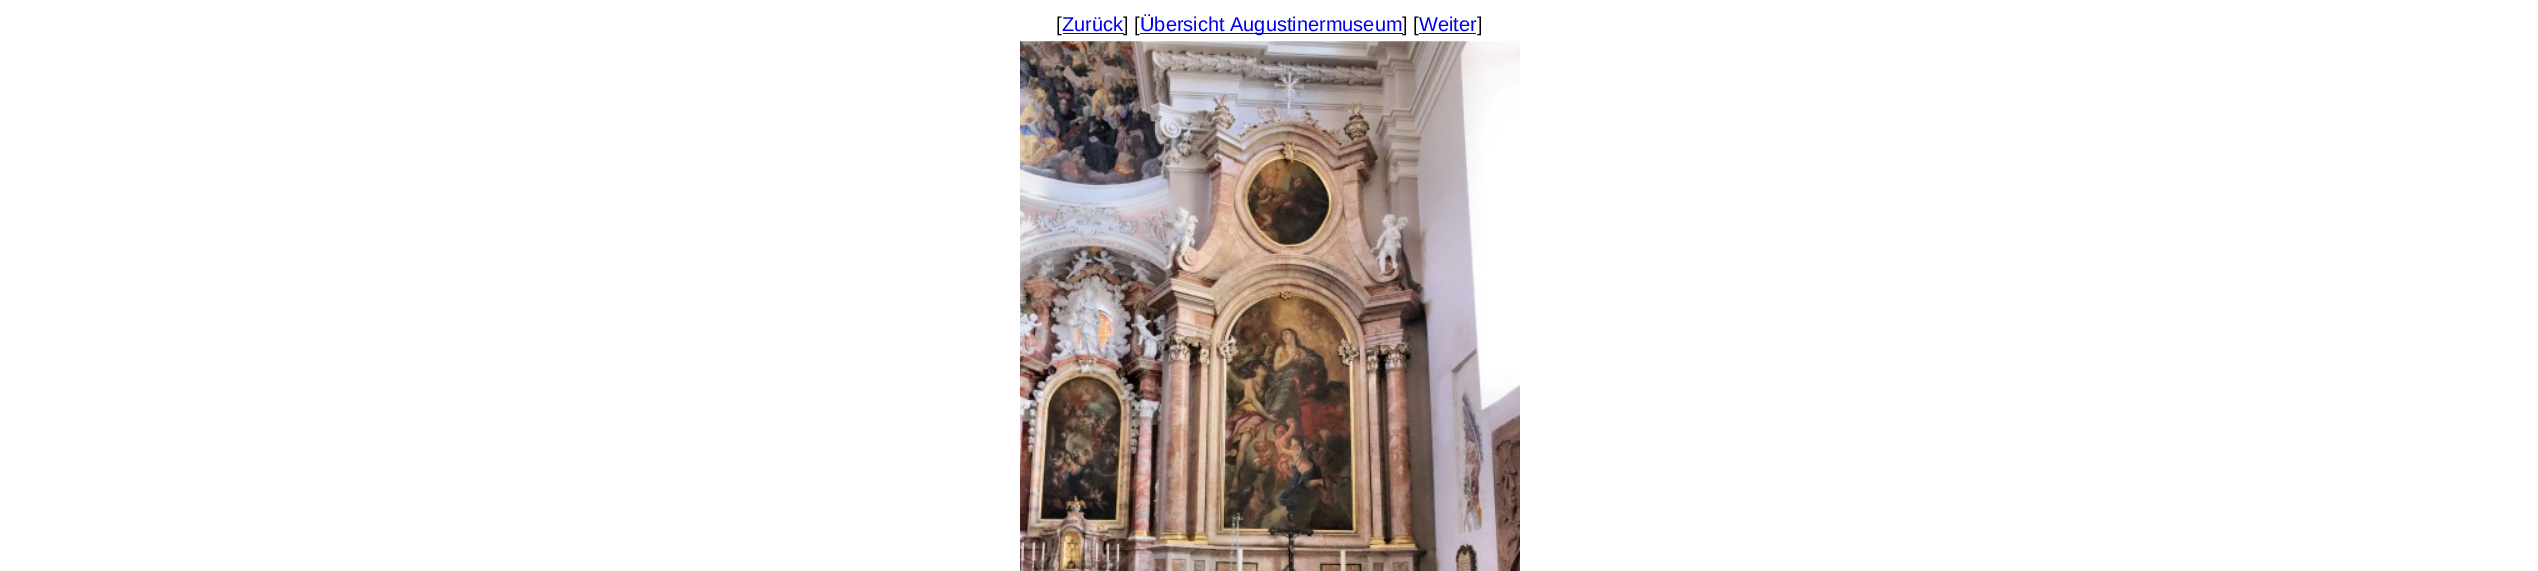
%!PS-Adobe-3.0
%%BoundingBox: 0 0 2538 571
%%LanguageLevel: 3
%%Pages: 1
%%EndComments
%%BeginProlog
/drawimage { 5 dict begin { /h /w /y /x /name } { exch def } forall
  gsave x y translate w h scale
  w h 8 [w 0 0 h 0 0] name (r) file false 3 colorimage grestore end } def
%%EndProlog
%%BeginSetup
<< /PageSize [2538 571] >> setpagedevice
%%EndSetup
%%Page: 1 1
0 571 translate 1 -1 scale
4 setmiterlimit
1 setgray
0 0 2538 571 rectfill
0 0 0.933 setrgbcolor
1063 33 61 1 rectfill
1140 33 263 1 rectfill
1419 33 57 1 rectfill
(images/1.raw) 1020 41 500 530 drawimage
/LiberationSans-Regular [20 0 0 -20 0 0] selectfont
0 setgray
1056 31 moveto ([) show
0 0 0.933 setrgbcolor
1062 31 moveto (Zurück) show
0 setgray
1123 31 moveto (] [) show
0 0 0.933 setrgbcolor
1140 31 moveto (Übersicht Augustinermuseum) show
0 setgray
1402 31 moveto (] [) show
0 0 0.933 setrgbcolor
1419 31 moveto (Weiter) show
0 setgray
1477 31 moveto (]) show
showpage
%%EOF
